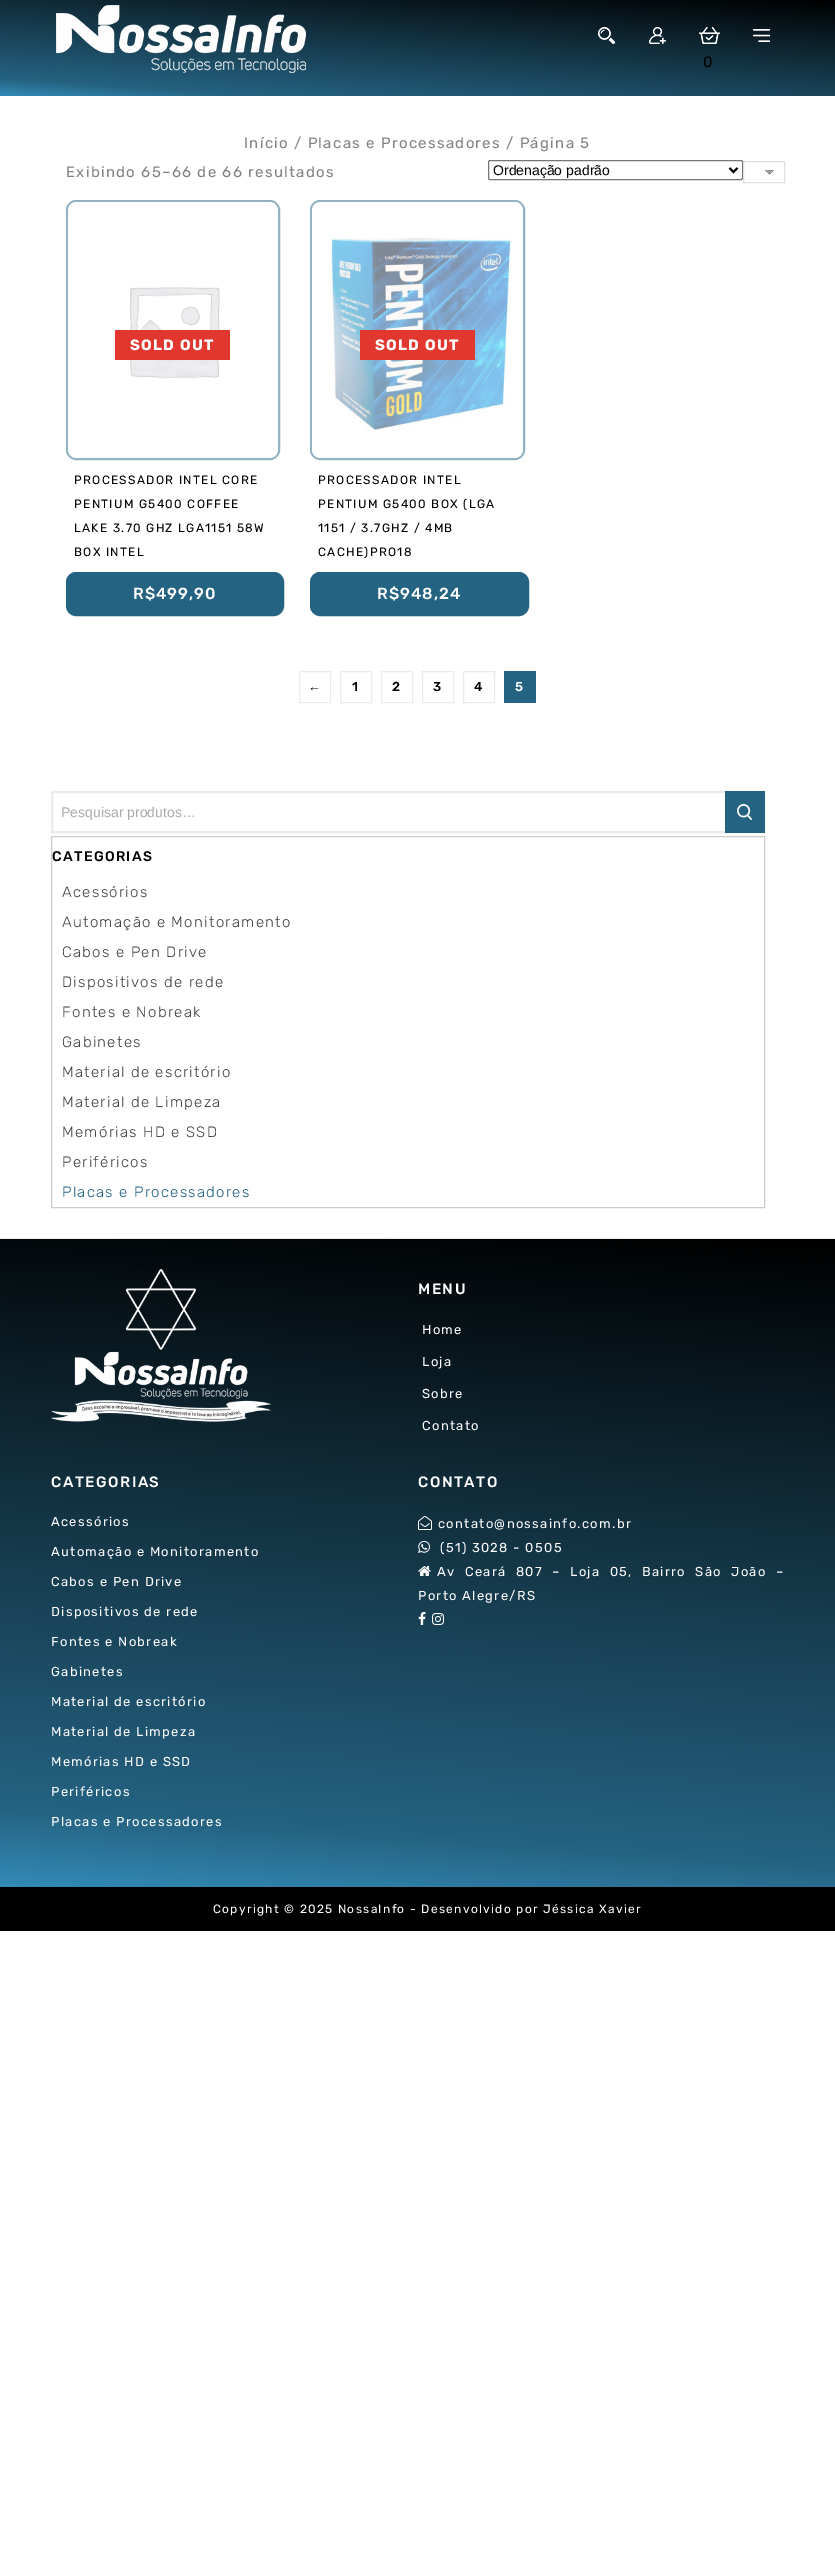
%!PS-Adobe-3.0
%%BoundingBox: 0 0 835 2555
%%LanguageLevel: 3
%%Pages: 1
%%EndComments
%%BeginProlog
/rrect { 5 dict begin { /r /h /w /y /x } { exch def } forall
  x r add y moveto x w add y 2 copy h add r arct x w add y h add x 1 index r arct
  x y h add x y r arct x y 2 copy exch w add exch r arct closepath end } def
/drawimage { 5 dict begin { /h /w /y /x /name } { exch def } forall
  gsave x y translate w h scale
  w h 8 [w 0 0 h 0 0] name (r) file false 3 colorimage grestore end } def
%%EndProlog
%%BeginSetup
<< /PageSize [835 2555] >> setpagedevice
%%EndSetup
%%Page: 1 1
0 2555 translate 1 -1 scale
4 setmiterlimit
1 setgray
0 0 835 2555 rectfill
gsave newpath 0 0 moveto 835 0 lineto 835 96 lineto 0 96 lineto closepath clip newpath
<< /ShadingType 2 /ColorSpace /DeviceRGB /Coords [423 -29 412 125] /Extend [true true] /Function << /FunctionType 3 /Domain [0 1] /Functions [<< /FunctionType 2 /Domain [0 1] /C0 [0 0 0] /C1 [0.145 0.388 0.51] /N 1 >> << /FunctionType 2 /Domain [0 1] /C0 [0.145 0.388 0.51] /C1 [0.196 0.545 0.722] /N 1 >>] /Bounds [0.89] /Encode [0 1 0 1] >> >> shfill grestore
(images/1.raw) 56 5 250 68 drawimage
(images/2.raw) 598 27 17 17 drawimage
(images/3.raw) 649 27 17 17 drawimage
(images/4.raw) 753 29 17 13 drawimage
(images/5.raw) 699 27 21 17 drawimage
0.463 setgray
488.5 160.5 254 19 1.5 rrect stroke
0 setgray
2 setlinewidth
newpath 729.5 168 moveto 733.5 172 lineto 737.5 168 lineto stroke
0.878 setgray
1 setlinewidth
743.5 161.5 41 21 rectstroke
(images/6.raw) 765 170 9 5 drawimage
0.573 0.694 0.757 setrgbcolor
2 setlinewidth
67 201 212 258 9 rrect stroke
(images/7.raw) 68 202 210 256 drawimage
0.882 0.216 0.184 setrgbcolor
115 330 115 30 rectfill
0.145 0.388 0.51 setrgbcolor
67 573 216 42 9 rrect gsave fill grestore
stroke
0.573 0.694 0.757 setrgbcolor
311 201 213 258 9 rrect stroke
(images/8.raw) 312 202 211 256 drawimage
0.882 0.216 0.184 setrgbcolor
360 330 115 30 rectfill
0.145 0.388 0.51 setrgbcolor
311 573 217 42 9 rrect gsave fill grestore
stroke
0.922 setgray
1 setlinewidth
299.5 671.5 31 31 rectstroke
340.5 671.5 31 31 rectstroke
381.5 671.5 31 31 rectstroke
422.5 671.5 31 31 rectstroke
463.5 671.5 31 31 rectstroke
0.145 0.388 0.51 setrgbcolor
504 671 32 32 rectfill
0.922 setgray
2 setlinewidth
52 792 712 40 rectstroke
0.145 0.388 0.51 setrgbcolor
725 791 40 42 rectfill
(images/9.raw) 737 804 15 16 drawimage
0.804 setgray
1 setlinewidth
51.5 836.5 713 371 rectstroke
0 setgray
0 1887 835 44 rectfill
gsave newpath 0 1239 moveto 835 1239 lineto 835 1887 lineto 0 1887 lineto closepath clip newpath
<< /ShadingType 2 /ColorSpace /DeviceRGB /Coords [442 1212 393 1914] /Extend [true true] /Function << /FunctionType 3 /Domain [0 1] /Functions [<< /FunctionType 2 /Domain [0 1] /C0 [0 0 0] /C1 [0.145 0.388 0.51] /N 1 >> << /FunctionType 2 /Domain [0 1] /C0 [0.145 0.388 0.51] /C1 [0.196 0.545 0.722] /N 1 >>] /Bounds [0.89] /Encode [0 1 0 1] >> >> shfill grestore
0.922 setgray
0 1238 835 1 rectfill
(images/10.raw) 51 1269 220 153 drawimage
(images/11.raw) 418 1516 14 14 drawimage
(images/12.raw) 418 1541 12 12 drawimage
(images/13.raw) 418 1566 13 10 drawimage
(images/14.raw) 418 1612 8 13 drawimage
(images/15.raw) 432 1613 12 12 drawimage
/Rubik-Light [15 0 0 -15 0 0] selectfont
0 setgray
703 67 moveto 1.3 0 (0) ashow
0.514 setgray
244 148 moveto 1.3 0 (Início / Placas e Processadores / Página 5) ashow
66 177 moveto 1.3 0 (Exibindo 65–66 de 66 resultados) ashow
/LiberationSans-Regular [14 0 0 -14 0 0] selectfont
0 setgray
493 175 moveto (Ordenação padrão) show
/Rubik-Bold [15 0 0 -15 0 0] selectfont
1 setgray
130 350 moveto 1.3 0 (SOLD OUT) ashow
/Rubik-Light [12 0 0 -12 0 0] selectfont
0 setgray
74 484 moveto 1.3 0 (PROCESSADOR INTEL CORE) ashow
74 508 moveto 1.3 0 (PENTIUM G5400 COFFEE) ashow
74 532 moveto 1.3 0 (LAKE 3.70 GHZ LGA1151 58W) ashow
74 556 moveto 1.3 0 (BOX INTEL) ashow
/Rubik-Medium [16 0 0 -16 0 0] selectfont
1 setgray
133 599 moveto 1 0 (R$499,90) ashow
/Rubik-Bold [15 0 0 -15 0 0] selectfont
375 350 moveto 1.3 0 (SOLD OUT) ashow
/Rubik-Light [12 0 0 -12 0 0] selectfont
0 setgray
318 484 moveto 1.3 0 (PROCESSADOR INTEL) ashow
318 508 moveto 1.3 0 (PENTIUM G5400 BOX \(LGA) ashow
318 532 moveto 1.3 0 (1151 / 3.7GHZ / 4MB) ashow
318 556 moveto 1.3 0 (CACHE\)PRO18) ashow
/Rubik-Medium [16 0 0 -16 0 0] selectfont
1 setgray
377 599 moveto 1 0 (R$948,24) ashow
/LiberationSans-Regular [13 0 0 -13 0 0] selectfont
0 setgray
308 691 moveto 1.3 0 (←) ashow
/Rubik-Medium [13 0 0 -13 0 0] selectfont
352 691 moveto 1.3 0 (1) ashow
392 691 moveto 1.3 0 (2) ashow
433 691 moveto 1.3 0 (3) ashow
474 691 moveto 1.3 0 (4) ashow
1 setgray
515 691 moveto 1.3 0 (5) ashow
/LiberationSans-Regular [14 0 0 -14 0 0] selectfont
0.667 setgray
61 817 moveto (Pesquisar produtos…) show
/Rubik-Medium [14 0 0 -14 0 0] selectfont
0 setgray
52 861 moveto 1.3 0 (CATEGORIAS) ashow
/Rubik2-Light [15 0 0 -15 0 0] selectfont
0.267 setgray
62 897 moveto 1.3 0 (Acessórios) ashow
62 927 moveto 1.3 0 (Automação e Monitoramento) ashow
62 957 moveto 1.3 0 (Cabos e Pen Drive) ashow
62 987 moveto 1.3 0 (Dispositivos de rede) ashow
62 1017 moveto 1.3 0 (Fontes e Nobreak) ashow
62 1047 moveto 1.3 0 (Gabinetes) ashow
62 1077 moveto 1.3 0 (Material de escritório) ashow
62 1107 moveto 1.3 0 (Material de Limpeza) ashow
62 1137 moveto 1.3 0 (Memórias HD e SSD) ashow
62 1167 moveto 1.3 0 (Periféricos) ashow
0.145 0.388 0.51 setrgbcolor
62 1197 moveto 1.3 0 (Placas e Processadores) ashow
/Rubik-Medium [15 0 0 -15 0 0] selectfont
1 setgray
418 1294 moveto 1.5 0 (MENU) ashow
/Rubik-Light [13 0 0 -13 0 0] selectfont
422 1334 moveto 1.3 0 (Home) ashow
422 1366 moveto 1.3 0 (Loja) ashow
422 1398 moveto 1.3 0 (Sobre) ashow
422 1430 moveto 1.3 0 (Contato) ashow
/Rubik-Medium [15 0 0 -15 0 0] selectfont
51 1487 moveto 1.5 0 (CATEGORIAS) ashow
/Rubik-Light [13 0 0 -13 0 0] selectfont
51 1526 moveto 1.3 0 (Acessórios) ashow
51 1556 moveto 1.3 0 (Automação e Monitoramento) ashow
51 1586 moveto 1.3 0 (Cabos e Pen Drive) ashow
51 1616 moveto 1.3 0 (Dispositivos de rede) ashow
51 1646 moveto 1.3 0 (Fontes e Nobreak) ashow
51 1676 moveto 1.3 0 (Gabinetes) ashow
51 1706 moveto 1.3 0 (Material de escritório) ashow
51 1736 moveto 1.3 0 (Material de Limpeza) ashow
51 1766 moveto 1.3 0 (Memórias HD e SSD) ashow
51 1796 moveto 1.3 0 (Periféricos) ashow
51 1826 moveto 1.3 0 (Placas e Processadores) ashow
/Rubik-Medium [15 0 0 -15 0 0] selectfont
418 1487 moveto 1.5 0 (CONTATO) ashow
/Rubik-Light [13 0 0 -13 0 0] selectfont
438 1528 moveto 1.3 0 (contato@nossainfo.com.br) ashow
440 1552 moveto 1.3 0 (\(51\) 3028 - 0505) ashow
437 1576 moveto 4.75 0 32 1.3 0 (Av Ceará 807 – Loja 05, Bairro São João –) awidthshow
418 1600 moveto 1.3 0 (Porto Alegre/RS) ashow
/Rubik-Light [12 0 0 -12 0 0] selectfont
213 1913 moveto 1.3 0 (Copyright © 2025 NossaInfo - Desenvolvido por Jéssica Xavier) ashow
showpage
%%EOF
